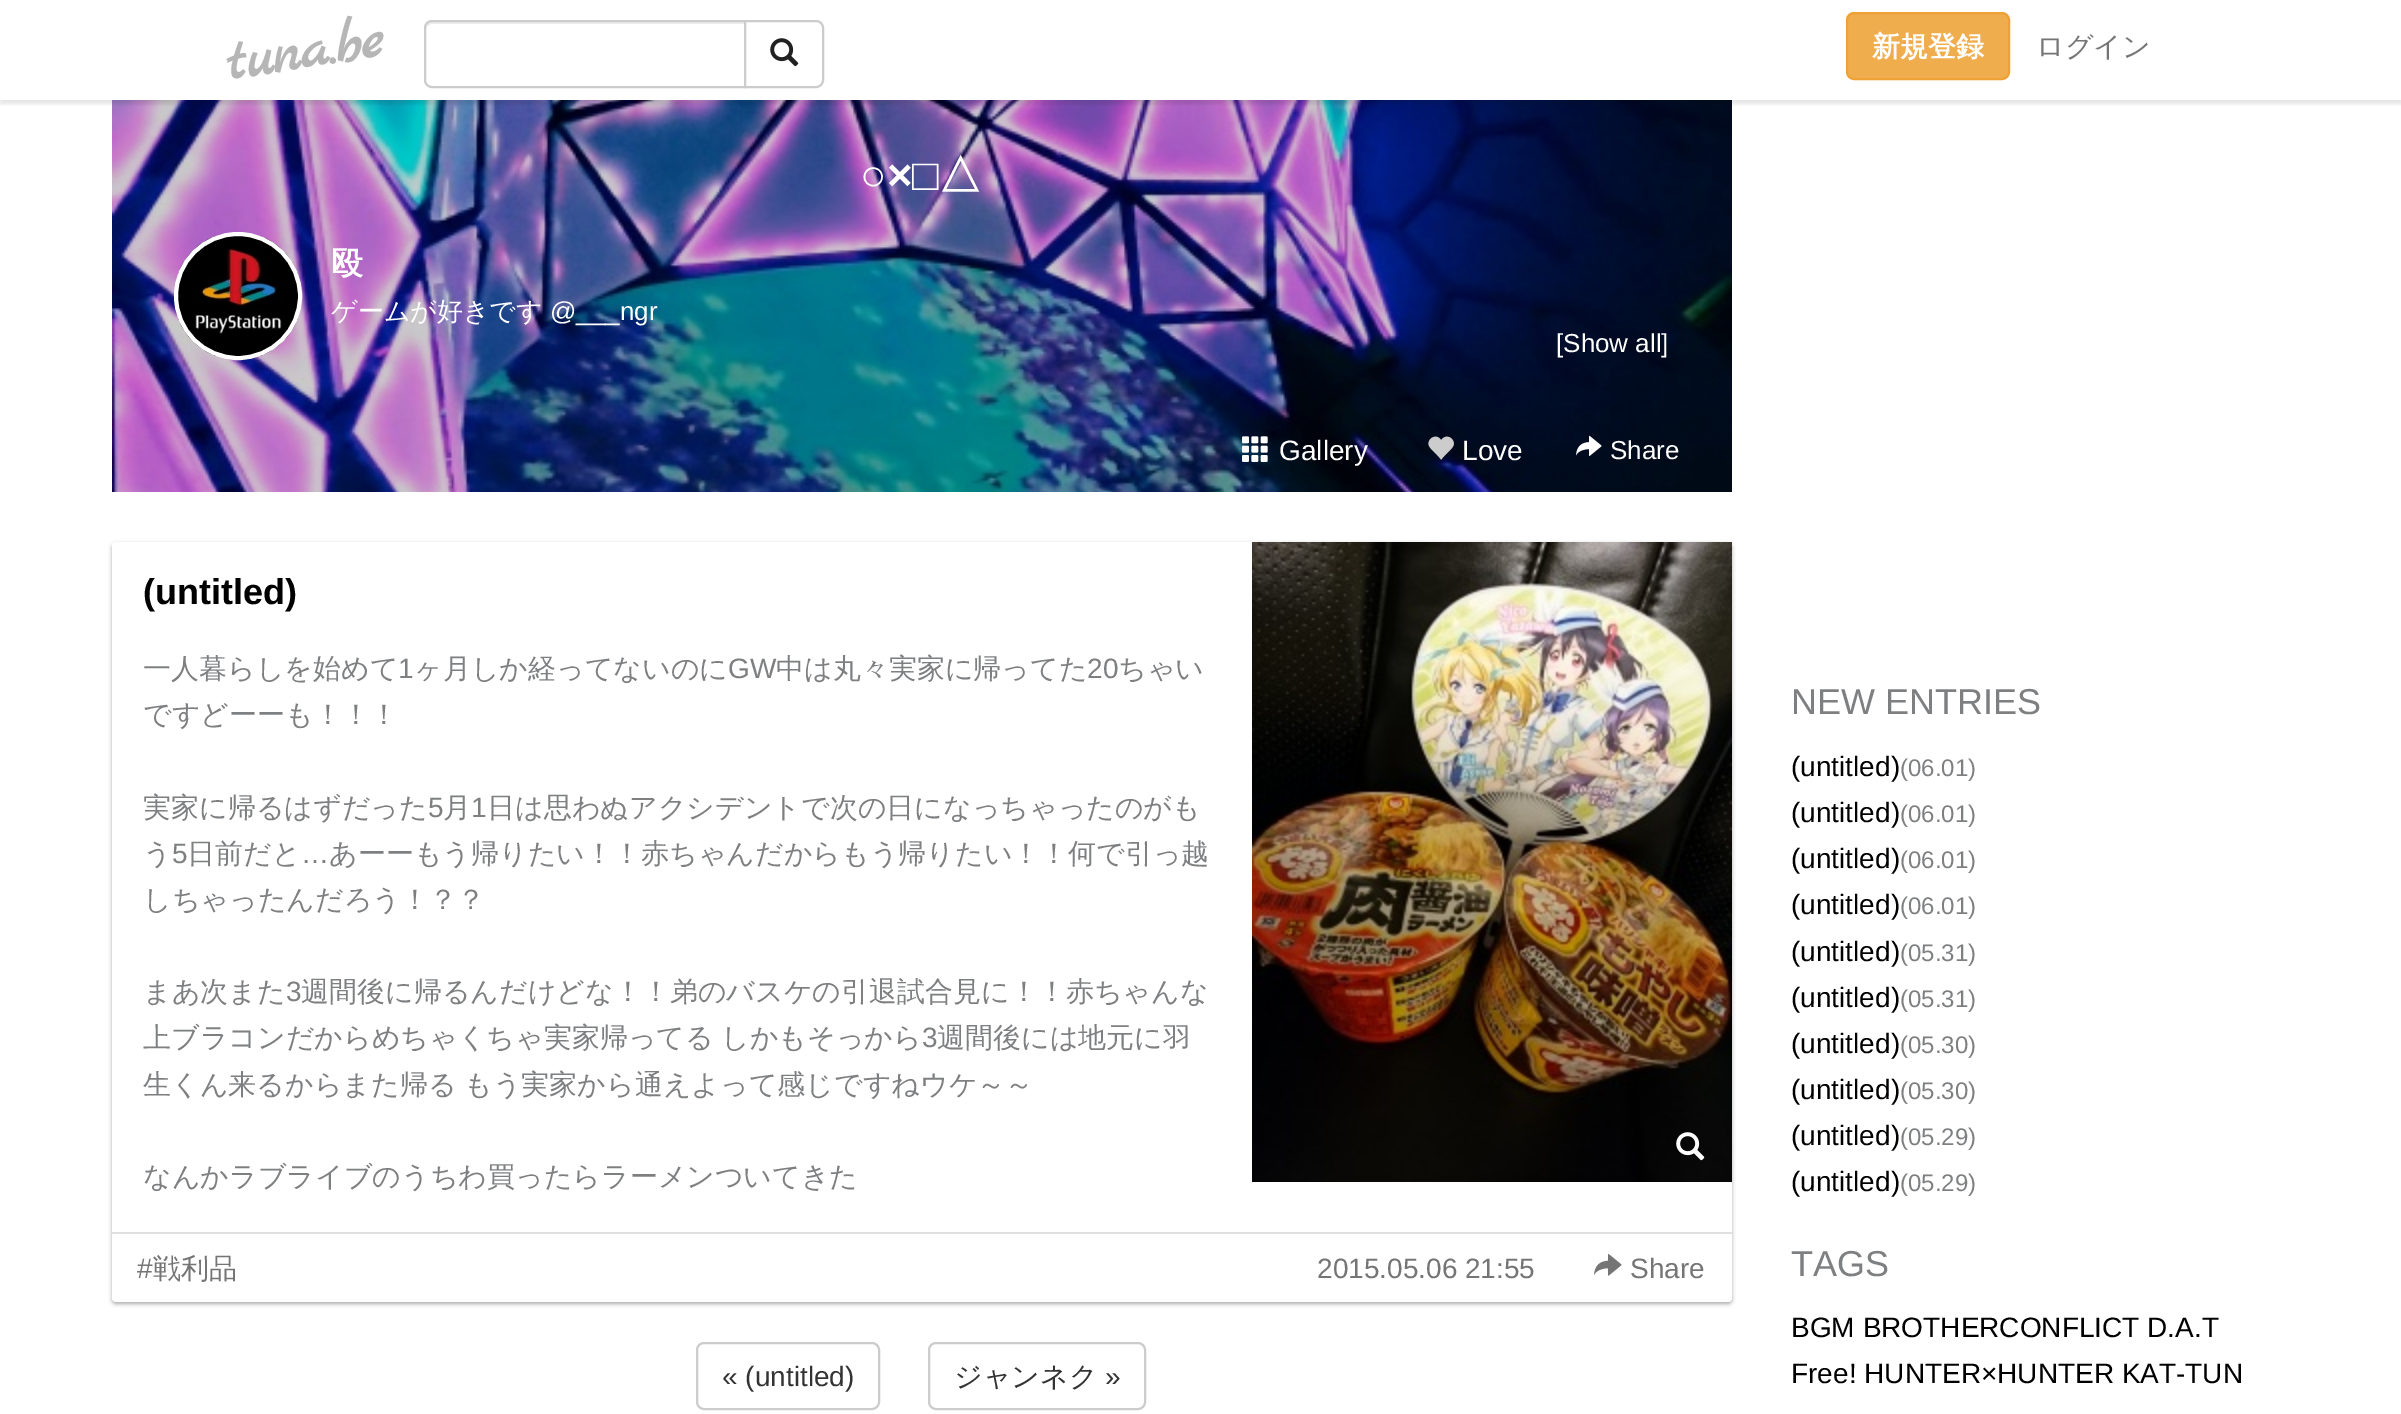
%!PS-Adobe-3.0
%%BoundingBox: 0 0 2401 1414
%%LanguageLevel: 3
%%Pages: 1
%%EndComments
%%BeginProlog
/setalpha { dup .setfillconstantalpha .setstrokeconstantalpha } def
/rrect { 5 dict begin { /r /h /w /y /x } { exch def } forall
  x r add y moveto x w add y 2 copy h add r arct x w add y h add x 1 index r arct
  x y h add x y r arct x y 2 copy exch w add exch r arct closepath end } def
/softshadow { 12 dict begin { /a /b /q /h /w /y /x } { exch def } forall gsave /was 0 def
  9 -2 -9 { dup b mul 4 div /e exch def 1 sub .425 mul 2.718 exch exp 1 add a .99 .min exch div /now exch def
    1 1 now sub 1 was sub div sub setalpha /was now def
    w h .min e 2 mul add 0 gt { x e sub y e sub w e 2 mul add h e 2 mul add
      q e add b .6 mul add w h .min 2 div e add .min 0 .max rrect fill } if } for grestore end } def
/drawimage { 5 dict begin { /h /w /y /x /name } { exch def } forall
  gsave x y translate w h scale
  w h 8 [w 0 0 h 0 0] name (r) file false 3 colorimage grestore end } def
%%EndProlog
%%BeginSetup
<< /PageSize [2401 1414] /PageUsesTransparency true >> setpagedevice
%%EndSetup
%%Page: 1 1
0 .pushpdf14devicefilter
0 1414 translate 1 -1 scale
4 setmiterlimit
1 setgray
0 0 2401 1414 rectfill
(images/2.raw) 112 100 1620 392 drawimage
gsave
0 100 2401 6 rectclip
0 setgray
0 4 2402 100 0 2 0.1 softshadow
grestore
0.925 setgray
newpath 432 24 moveto 744 24 lineto 744 22 lineto 431 22 lineto 427 23 426 27 426 30 curveto 426 27 429 24 432 24 curveto closepath fill
0.8 setgray
2 setlinewidth
newpath 432 21 moveto 745 21 lineto 745 87 lineto 432 87 lineto 428 87 425 84 425 80 curveto 425 28 lineto 425 24 428 21 432 21 curveto closepath stroke
1 setgray
newpath 745 21 moveto 816 21 lineto 820 21 823 24 823 28 curveto 823 80 lineto 823 84 820 87 816 87 curveto 745 87 lineto closepath gsave fill grestore
0.8 setgray
stroke
(images/1.raw) 770 38 29 29 drawimage
0.941 0.678 0.306 setrgbcolor
1847 13 162 66 7 rrect gsave fill grestore
0.933 0.635 0.212 setrgbcolor
stroke
(images/3.raw) 178 236 120 120 drawimage
1 setgray
4 setlinewidth
newpath 238 296 62 0 360 arc closepath stroke
(images/4.raw) 1242 436 26 26 drawimage
(images/5.raw) 1428 436 26 24 drawimage
(images/6.raw) 1576 435 26 21 drawimage
0.667 setgray
112 544 1620 760 4 2 1 softshadow
1 setgray
112 542 1620 760 4 rrect fill
(images/7.raw) 1252 542 480 640 drawimage
(images/8.raw) 1676 1132 29 29 drawimage
0.878 setgray
112 1232 1620 2 rectfill
(images/9.raw) 1594 1254 28 22 drawimage
0.8 setgray
2 setlinewidth
697 1343 182 66 7 rrect stroke
929 1343 216 66 7 rrect stroke
/MarckScript-Bold [60 0 0 -60 0 0] selectfont
0.714 setgray
gsave 229 80 translate -9 rotate 0 0 moveto (tuna.be) show grestore
/WenQuanYiZenHei-Bold [28 0 0 -28 0 0] selectfont
1 setgray
1872 56 moveto (新規登録) show
/WenQuanYiZenHei-Medium [28 0 0 -28 0 0] selectfont
0.459 setgray
2036 56 moveto (ログイン) show
/LiberationSans-Bold [44 0 0 -44 0 0] selectfont
1 setgray
860 190 moveto (○×□) show
/WenQuanYiZenHei-Bold [44 0 0 -44 0 0] selectfont
938 190 moveto (△) show
/WenQuanYiZenHei-Bold [32 0 0 -32 0 0] selectfont
331 274 moveto (殴) show
/WenQuanYiZenHei-Medium [26 0 0 -26 0 0] selectfont
331 320 moveto (ゲームが好きです) show
/LiberationSans-Regular [26 0 0 -26 0 0] selectfont
550 320 moveto (@___ngr) show
1556 352 moveto ([Show all]) show
/LiberationSans-Regular [28 0 0 -28 0 0] selectfont
1279 460 moveto (Gallery) show
1462 460 moveto (Love) show
/LiberationSans-Regular [26 0 0 -26 0 0] selectfont
1610 459 moveto (Share) show
/LiberationSans-Bold [36 0 0 -36 0 0] selectfont
0 setgray
143 604 moveto (\(untitled\)) show
/WenQuanYiZenHei-Medium [28 0 0 -28 0 0] selectfont
0.49 0.498 0.506 setrgbcolor
143 678 moveto (一人暮らしを始めて) show
/LiberationSans-Regular [28 0 0 -28 0 0] selectfont
398 678 moveto (1) show
/WenQuanYiZenHei-Medium [28 0 0 -28 0 0] selectfont
414 678 moveto (ヶ月しか経ってないのに) show
/LiberationSans-Regular [28 0 0 -28 0 0] selectfont
728 678 moveto (GW) show
/WenQuanYiZenHei-Medium [28 0 0 -28 0 0] selectfont
776 678 moveto (中は丸々実家に帰ってた) show
/LiberationSans-Regular [28 0 0 -28 0 0] selectfont
1087 678 moveto (20) show
/WenQuanYiZenHei-Medium [28 0 0 -28 0 0] selectfont
1118 678 moveto (ちゃい) show
143 724 moveto (ですどーーも！！！) show
143 817 moveto (実家に帰るはずだった) show
/LiberationSans-Regular [28 0 0 -28 0 0] selectfont
428 817 moveto (5) show
/WenQuanYiZenHei-Medium [28 0 0 -28 0 0] selectfont
443 817 moveto (月) show
/LiberationSans-Regular [28 0 0 -28 0 0] selectfont
471 817 moveto (1) show
/WenQuanYiZenHei-Medium [28 0 0 -28 0 0] selectfont
487 817 moveto (日は思わぬアクシデントで次の日になっちゃったのがも) show
143 863 moveto (う) show
/LiberationSans-Regular [28 0 0 -28 0 0] selectfont
172 863 moveto (5) show
/WenQuanYiZenHei-Medium [28 0 0 -28 0 0] selectfont
187 863 moveto (日前だと) show
/LiberationSans-Regular [28 0 0 -28 0 0] selectfont
301 863 moveto (…) show
/WenQuanYiZenHei-Medium [28 0 0 -28 0 0] selectfont
329 863 moveto (あーーもう帰りたい！！赤ちゃんだからもう帰りたい！！何で引っ越) show
143 909 moveto (しちゃったんだろう！？？) show
143 1001 moveto (まあ次また) show
/LiberationSans-Regular [28 0 0 -28 0 0] selectfont
286 1001 moveto (3) show
/WenQuanYiZenHei-Medium [28 0 0 -28 0 0] selectfont
301 1001 moveto (週間後に帰るんだけどな！！弟のバスケの引退試合見に！！赤ちゃんな) show
143 1047 moveto -1 0 32 (上ブラコンだからめちゃくちゃ実家帰ってる しかもそっから) widthshow
/LiberationSans-Regular [28 0 0 -28 0 0] selectfont
922 1047 moveto (3) show
/WenQuanYiZenHei-Medium [28 0 0 -28 0 0] selectfont
937 1047 moveto (週間後には地元に羽) show
143 1094 moveto (生くん来るからまた帰る) show
464 1094 moveto (もう実家から通えよって感じですねウケ～～) show
143 1186 moveto (なんかラブライブのうちわ買ったらラーメンついてきた) show
/LiberationSans-Regular [28 0 0 -28 0 0] selectfont
0.459 setgray
137 1278 moveto (#) show
/WenQuanYiZenHei-Medium [28 0 0 -28 0 0] selectfont
153 1278 moveto (戦利品) show
/LiberationSans-Regular [28 0 0 -28 0 0] selectfont
1317 1278 moveto (2015.05.06 21:55) show
1630 1278 moveto (Share) show
0.2 setgray
722 1386 moveto (« \(untitled\)) show
/WenQuanYiZenHei-Medium [28 0 0 -28 0 0] selectfont
954 1386 moveto (ジャンネク) show
/LiberationSans-Regular [28 0 0 -28 0 0] selectfont
1105 1386 moveto (») show
/LiberationSans-Regular [36 0 0 -36 0 0] selectfont
0.49 0.498 0.506 setrgbcolor
1791 714 moveto (NEW ENTRIES) show
/LiberationSans-Regular [28 0 0 -28 0 0] selectfont
0 setgray
1791 776 moveto (\(untitled\)) show
/LiberationSans-Regular [24 0 0 -24 0 0] selectfont
0.49 0.498 0.506 setrgbcolor
1900 776 moveto (\(06.01\)) show
/LiberationSans-Regular [28 0 0 -28 0 0] selectfont
0 setgray
1791 822 moveto (\(untitled\)) show
/LiberationSans-Regular [24 0 0 -24 0 0] selectfont
0.49 0.498 0.506 setrgbcolor
1900 822 moveto (\(06.01\)) show
/LiberationSans-Regular [28 0 0 -28 0 0] selectfont
0 setgray
1791 868 moveto (\(untitled\)) show
/LiberationSans-Regular [24 0 0 -24 0 0] selectfont
0.49 0.498 0.506 setrgbcolor
1900 868 moveto (\(06.01\)) show
/LiberationSans-Regular [28 0 0 -28 0 0] selectfont
0 setgray
1791 914 moveto (\(untitled\)) show
/LiberationSans-Regular [24 0 0 -24 0 0] selectfont
0.49 0.498 0.506 setrgbcolor
1900 914 moveto (\(06.01\)) show
/LiberationSans-Regular [28 0 0 -28 0 0] selectfont
0 setgray
1791 961 moveto (\(untitled\)) show
/LiberationSans-Regular [24 0 0 -24 0 0] selectfont
0.49 0.498 0.506 setrgbcolor
1900 961 moveto (\(05.31\)) show
/LiberationSans-Regular [28 0 0 -28 0 0] selectfont
0 setgray
1791 1007 moveto (\(untitled\)) show
/LiberationSans-Regular [24 0 0 -24 0 0] selectfont
0.49 0.498 0.506 setrgbcolor
1900 1007 moveto (\(05.31\)) show
/LiberationSans-Regular [28 0 0 -28 0 0] selectfont
0 setgray
1791 1053 moveto (\(untitled\)) show
/LiberationSans-Regular [24 0 0 -24 0 0] selectfont
0.49 0.498 0.506 setrgbcolor
1900 1053 moveto (\(05.30\)) show
/LiberationSans-Regular [28 0 0 -28 0 0] selectfont
0 setgray
1791 1099 moveto (\(untitled\)) show
/LiberationSans-Regular [24 0 0 -24 0 0] selectfont
0.49 0.498 0.506 setrgbcolor
1900 1099 moveto (\(05.30\)) show
/LiberationSans-Regular [28 0 0 -28 0 0] selectfont
0 setgray
1791 1145 moveto (\(untitled\)) show
/LiberationSans-Regular [24 0 0 -24 0 0] selectfont
0.49 0.498 0.506 setrgbcolor
1900 1145 moveto (\(05.29\)) show
/LiberationSans-Regular [28 0 0 -28 0 0] selectfont
0 setgray
1791 1191 moveto (\(untitled\)) show
/LiberationSans-Regular [24 0 0 -24 0 0] selectfont
0.49 0.498 0.506 setrgbcolor
1900 1191 moveto (\(05.29\)) show
/LiberationSans-Regular [36 0 0 -36 0 0] selectfont
1791 1276 moveto (TAGS) show
/LiberationSans-Regular [28 0 0 -28 0 0] selectfont
0 setgray
1791 1337 moveto (BGM BROTHERCONFLICT D.A.T) show
1791 1383 moveto (Free! HUNTER×HUNTER KAT-TUN) show
.poppdf14devicefilter showpage
%%EOF
